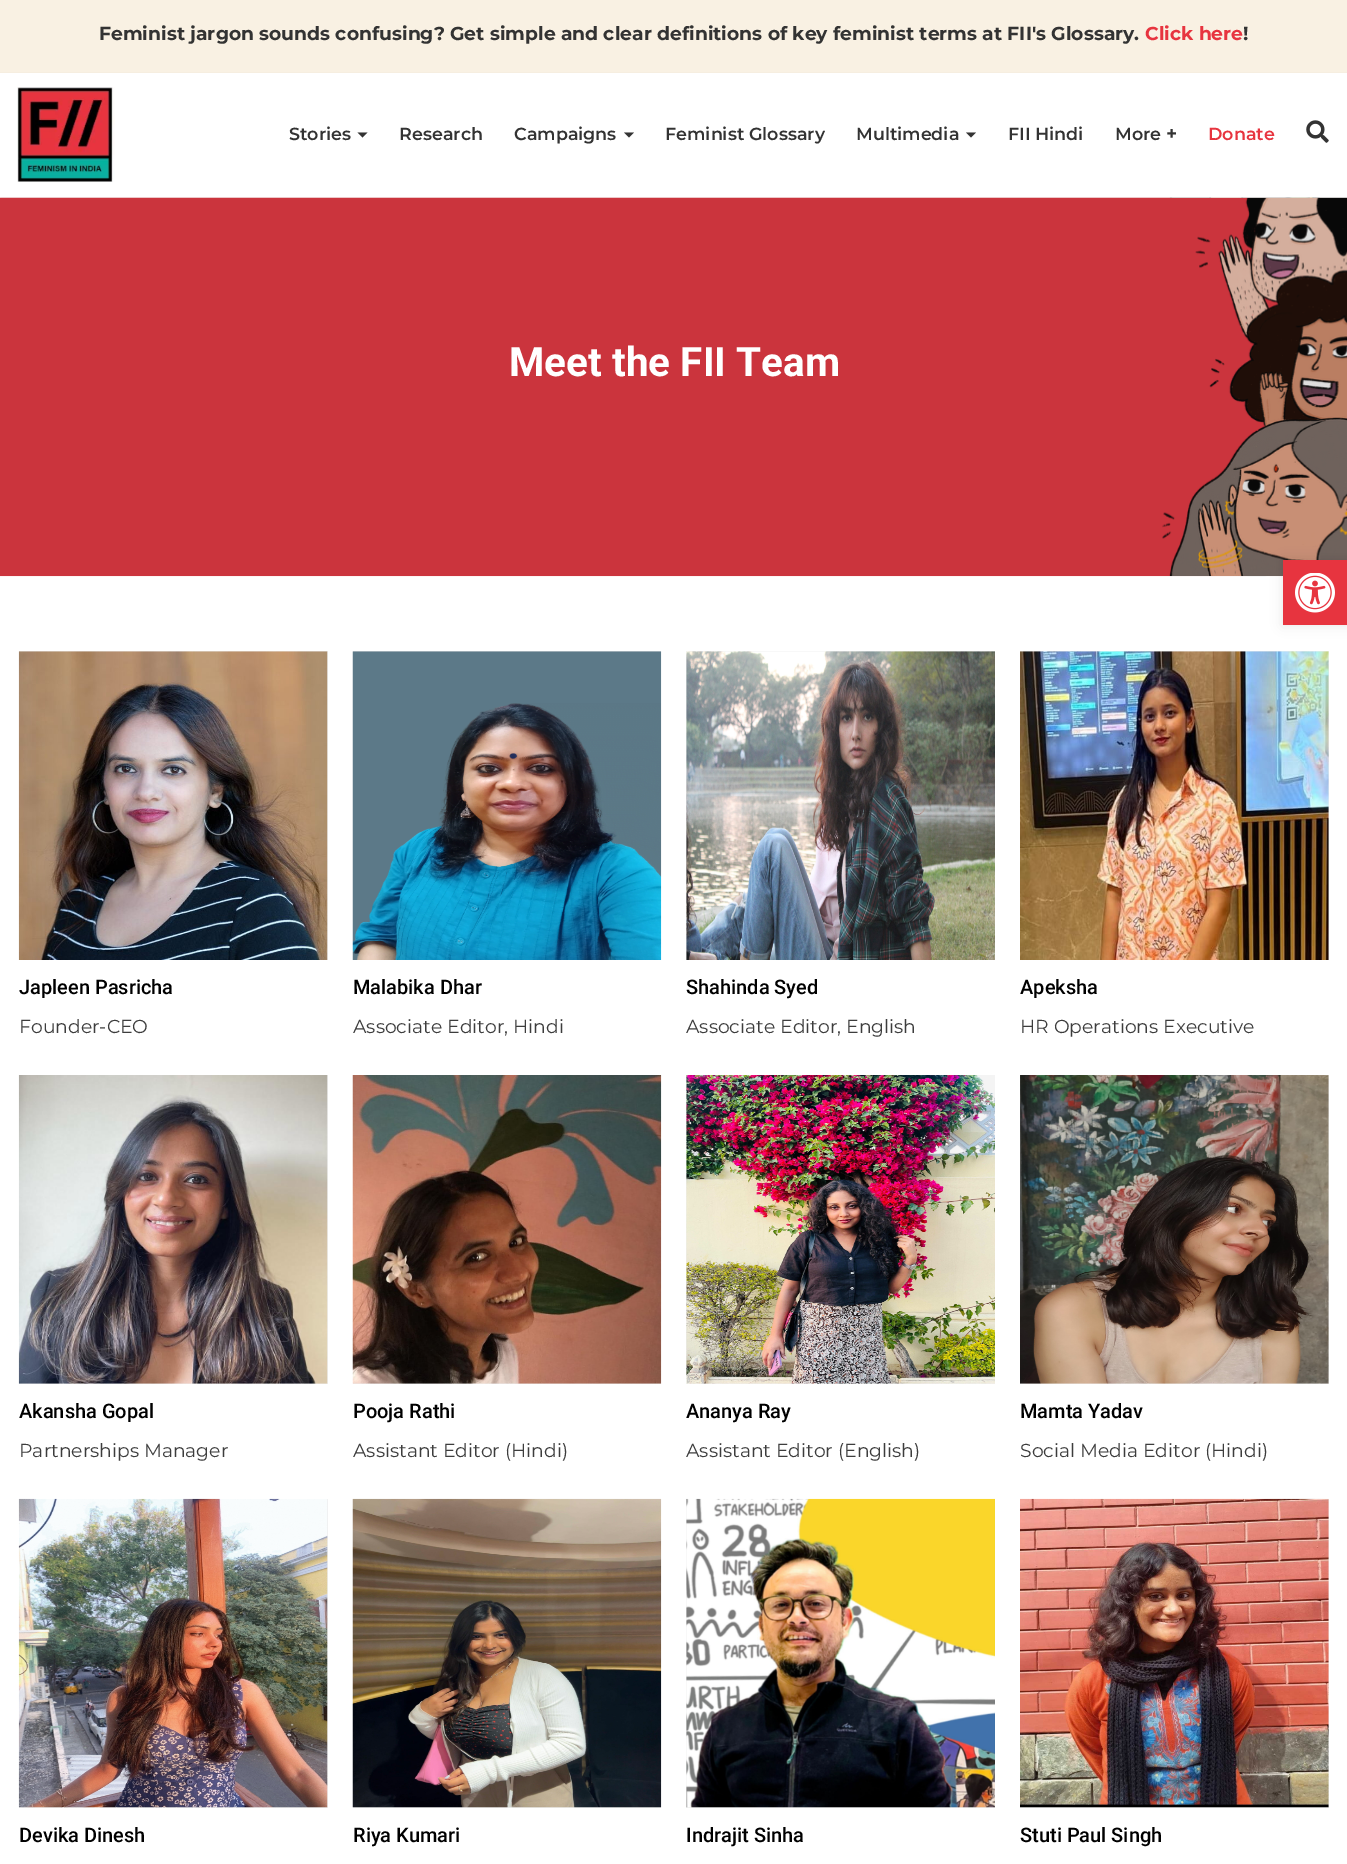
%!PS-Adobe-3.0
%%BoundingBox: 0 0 1347 1864
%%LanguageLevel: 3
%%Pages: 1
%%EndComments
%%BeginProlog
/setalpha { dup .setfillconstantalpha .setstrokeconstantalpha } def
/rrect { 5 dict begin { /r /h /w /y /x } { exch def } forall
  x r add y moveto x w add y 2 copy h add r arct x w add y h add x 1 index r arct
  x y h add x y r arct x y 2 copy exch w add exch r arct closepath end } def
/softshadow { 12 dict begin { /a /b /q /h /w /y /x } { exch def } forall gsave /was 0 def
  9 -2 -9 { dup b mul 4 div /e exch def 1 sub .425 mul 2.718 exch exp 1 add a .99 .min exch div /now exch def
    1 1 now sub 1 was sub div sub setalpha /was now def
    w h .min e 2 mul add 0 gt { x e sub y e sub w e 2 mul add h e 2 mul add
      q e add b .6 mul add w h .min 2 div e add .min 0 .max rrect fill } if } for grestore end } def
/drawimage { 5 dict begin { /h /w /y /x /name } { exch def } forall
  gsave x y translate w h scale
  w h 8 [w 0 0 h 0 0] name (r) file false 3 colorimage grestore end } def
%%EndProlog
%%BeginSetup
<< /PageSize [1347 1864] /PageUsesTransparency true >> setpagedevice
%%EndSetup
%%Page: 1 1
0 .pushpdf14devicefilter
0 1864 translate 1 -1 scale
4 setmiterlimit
1 setgray
0 0 1347 1864 rectfill
0.976 0.945 0.89 setrgbcolor
0 0 1347 73 rectfill
gsave
newpath 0 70 moveto 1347 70 lineto 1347 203 lineto 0 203 lineto closepath 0 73 moveto 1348 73 lineto 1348 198 lineto 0 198 lineto closepath eoclip newpath
0 setgray
0 74 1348 125 0 1 0.15 softshadow
grestore
(images/1.raw) 17 87 98 95 drawimage
0.2 setgray
newpath 357.5 132.5 moveto 367.5 132.5 lineto 362.5 137.5 lineto closepath fill
newpath 624 132.5 moveto 634 132.5 lineto 629 137.5 lineto closepath fill
newpath 966 132.5 moveto 976 132.5 lineto 971 137.5 lineto closepath fill
(images/2.raw) 1306 120 23 23 drawimage
(images/3.raw) 0 197 1347 380 drawimage
0.933 setgray
19 651 309 309 rectfill
(images/4.raw) 18 651 310 309 drawimage
353 651 308 1 rectfill
(images/5.raw) 352 651 310 309 drawimage
686 651 309 309 rectfill
(images/6.raw) 686 651 309 309 drawimage
1020 651 309 309 rectfill
(images/7.raw) 1020 651 309 309 drawimage
19 1075 309 309 rectfill
(images/8.raw) 18 1075 310 309 drawimage
353 1383 308 1 rectfill
(images/9.raw) 352 1075 310 309 drawimage
686 1075 309 309 rectfill
(images/10.raw) 686 1075 309 309 drawimage
1020 1075 309 309 rectfill
(images/11.raw) 1020 1075 309 309 drawimage
19 1499 309 309 rectfill
(images/12.raw) 18 1498 310 310 drawimage
353 1807 308 1 rectfill
(images/13.raw) 352 1498 310 310 drawimage
686 1499 309 309 rectfill
(images/14.raw) 686 1498 309 310 drawimage
1020 1499 309 309 rectfill
(images/15.raw) 1020 1498 309 310 drawimage
0 setgray
1283 560 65 65 0 6 0.1 softshadow
0.906 0.204 0.247 setrgbcolor
1283 560 64 65 rectfill
(images/16.raw) 1295 573 40 40 drawimage
/Montserrat-Bold [18.75 0 0 -18.75 0 0] selectfont
0.2 setgray
99 40 moveto (Feminist jargon sounds confusing? Get simple and clear definitions of key feminist terms at FII's Glossary.) show
0.906 0.204 0.247 setrgbcolor
1145 40 moveto (Click here) show
0.2 setgray
1243 40 moveto (!) show
/Montserrat-SemiBold [17.5 0 0 -17.5 0 0] selectfont
289 140 moveto (Stories) show
399 140 moveto (Research) show
514 140 moveto (Campaigns) show
665 140 moveto (Feminist Glossary) show
856 140 moveto (Multimedia) show
1008 140 moveto (FII Hindi) show
1115 140 moveto (More) show
/Montserrat-Bold [18.75 0 0 -18.75 0 0] selectfont
1166 140 moveto (+) show
/Montserrat-SemiBold [17.5 0 0 -17.5 0 0] selectfont
0.906 0.204 0.247 setrgbcolor
1208 140 moveto (Donate) show
/Roboto-Bold [40.5 0 0 -40.5 0 0] selectfont
1 setgray
509 376 moveto (Meet the FII Team) show
/Roboto-Medium [20 0 0 -20 0 0] selectfont
0 setgray
19 994 moveto (Japleen Pasricha) show
/Montserrat-Regular [18.75 0 0 -18.75 0 0] selectfont
0.239 setgray
19 1033 moveto (Founder-CEO) show
/Roboto-Medium [20 0 0 -20 0 0] selectfont
0 setgray
353 994 moveto (Malabika Dhar) show
/Montserrat-Regular [18.75 0 0 -18.75 0 0] selectfont
0.239 setgray
353 1033 moveto (Associate Editor, Hindi) show
/Roboto-Medium [20 0 0 -20 0 0] selectfont
0 setgray
686 994 moveto (Shahinda Syed) show
/Montserrat-Regular [18.75 0 0 -18.75 0 0] selectfont
0.239 setgray
686 1033 moveto (Associate Editor, English) show
/Roboto-Medium [20 0 0 -20 0 0] selectfont
0 setgray
1020 994 moveto (Apeksha) show
/Montserrat-Regular [18.75 0 0 -18.75 0 0] selectfont
0.239 setgray
1020 1033 moveto (HR Operations Executive) show
/Roboto-Medium [20 0 0 -20 0 0] selectfont
0 setgray
19 1418 moveto (Akansha Gopal) show
/Montserrat-Regular [18.75 0 0 -18.75 0 0] selectfont
0.239 setgray
19 1457 moveto (Partnerships Manager) show
/Roboto-Medium [20 0 0 -20 0 0] selectfont
0 setgray
353 1418 moveto (Pooja Rathi) show
/Montserrat-Regular [18.75 0 0 -18.75 0 0] selectfont
0.239 setgray
353 1457 moveto (Assistant Editor \(Hindi\)) show
/Roboto-Medium [20 0 0 -20 0 0] selectfont
0 setgray
686 1418 moveto (Ananya Ray) show
/Montserrat-Regular [18.75 0 0 -18.75 0 0] selectfont
0.239 setgray
686 1457 moveto (Assistant Editor \(English\)) show
/Roboto-Medium [20 0 0 -20 0 0] selectfont
0 setgray
1020 1418 moveto (Mamta Yadav) show
/Montserrat-Regular [18.75 0 0 -18.75 0 0] selectfont
0.239 setgray
1020 1457 moveto (Social Media Editor \(Hindi\)) show
/Roboto-Medium [20 0 0 -20 0 0] selectfont
0 setgray
19 1842 moveto (Devika Dinesh) show
353 1842 moveto (Riya Kumari) show
686 1842 moveto (Indrajit Sinha) show
1020 1842 moveto (Stuti Paul Singh) show
.poppdf14devicefilter showpage
%%EOF
